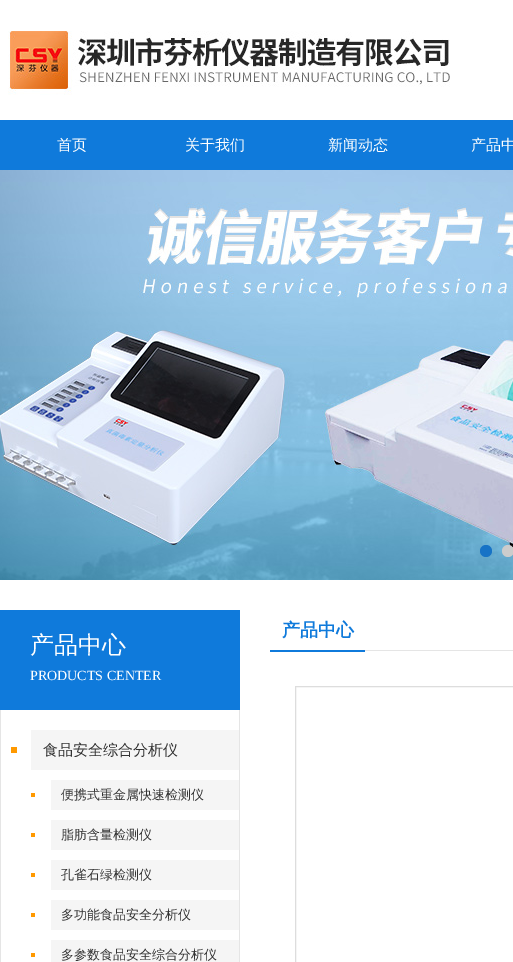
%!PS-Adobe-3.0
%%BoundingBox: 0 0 513 962
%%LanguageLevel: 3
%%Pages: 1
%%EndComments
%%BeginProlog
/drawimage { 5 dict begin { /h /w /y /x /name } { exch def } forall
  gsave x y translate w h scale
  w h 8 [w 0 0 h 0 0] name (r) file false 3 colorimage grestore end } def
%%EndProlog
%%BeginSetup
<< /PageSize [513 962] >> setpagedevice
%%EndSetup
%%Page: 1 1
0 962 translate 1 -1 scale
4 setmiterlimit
1 setgray
0 0 513 962 rectfill
(images/1.raw) 8 31 442 64 drawimage
0.059 0.478 0.859 setrgbcolor
0 120 513 50 rectfill
(images/2.raw) 0 170 513 410 drawimage
0.09 0.451 0.776 setrgbcolor
newpath 486 551 6 0 360 arc closepath fill
0.8 setgray
newpath 508 551 6 0 360 arc closepath fill
0.898 setgray
365 650 148 1 rectfill
0.059 0.478 0.859 setrgbcolor
270 650 95 2 rectfill
0.867 setgray
295.5 686.5 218 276 rectstroke
0.059 0.478 0.859 setrgbcolor
0 610 240 100 rectfill
0.898 setgray
239 710 1 252 rectfill
0 710 1 252 rectfill
1 0.6 0 setrgbcolor
11 747 6 6 rectfill
0.961 setgray
31 730 208 40 rectfill
1 0.6 0 setrgbcolor
31 793 4 4 rectfill
0.961 setgray
51 780 188 30 rectfill
1 0.6 0 setrgbcolor
31 833 4 4 rectfill
0.961 setgray
51 820 188 30 rectfill
1 0.6 0 setrgbcolor
31 873 4 4 rectfill
0.961 setgray
51 860 188 30 rectfill
1 0.6 0 setrgbcolor
31 913 4 4 rectfill
0.961 setgray
51 900 188 30 rectfill
1 0.6 0 setrgbcolor
31 953 4 4 rectfill
0.961 setgray
51 940 188 22 rectfill
/WenQuanYiZenHei-Medium [15 0 0 -15 0 0] selectfont
1 setgray
57 150 moveto (首页) show
185 150 moveto (关于我们) show
328 150 moveto (新闻动态) show
471 150 moveto (产品中) show
/WenQuanYiZenHei-Bold [18 0 0 -18 0 0] selectfont
0.059 0.478 0.859 setrgbcolor
282 636 moveto (产品中心) show
/WenQuanYiZenHei-Medium [24 0 0 -24 0 0] selectfont
1 setgray
30 653 moveto (产品中心) show
/LiberationSerif-Regular [14 0 0 -14 0 0] selectfont
30 680 moveto (PRODUCTS CENTER) show
/WenQuanYiZenHei-Medium [15 0 0 -15 0 0] selectfont
0.2 setgray
43 755 moveto (食品安全综合分析仪) show
/WenQuanYiZenHei-Medium [13 0 0 -13 0 0] selectfont
61 799 moveto (便携式重金属快速检测仪) show
61 839 moveto (脂肪含量检测仪) show
61 879 moveto (孔雀石绿检测仪) show
61 919 moveto (多功能食品安全分析仪) show
61 959 moveto (多参数食品安全综合分析仪) show
showpage
%%EOF
